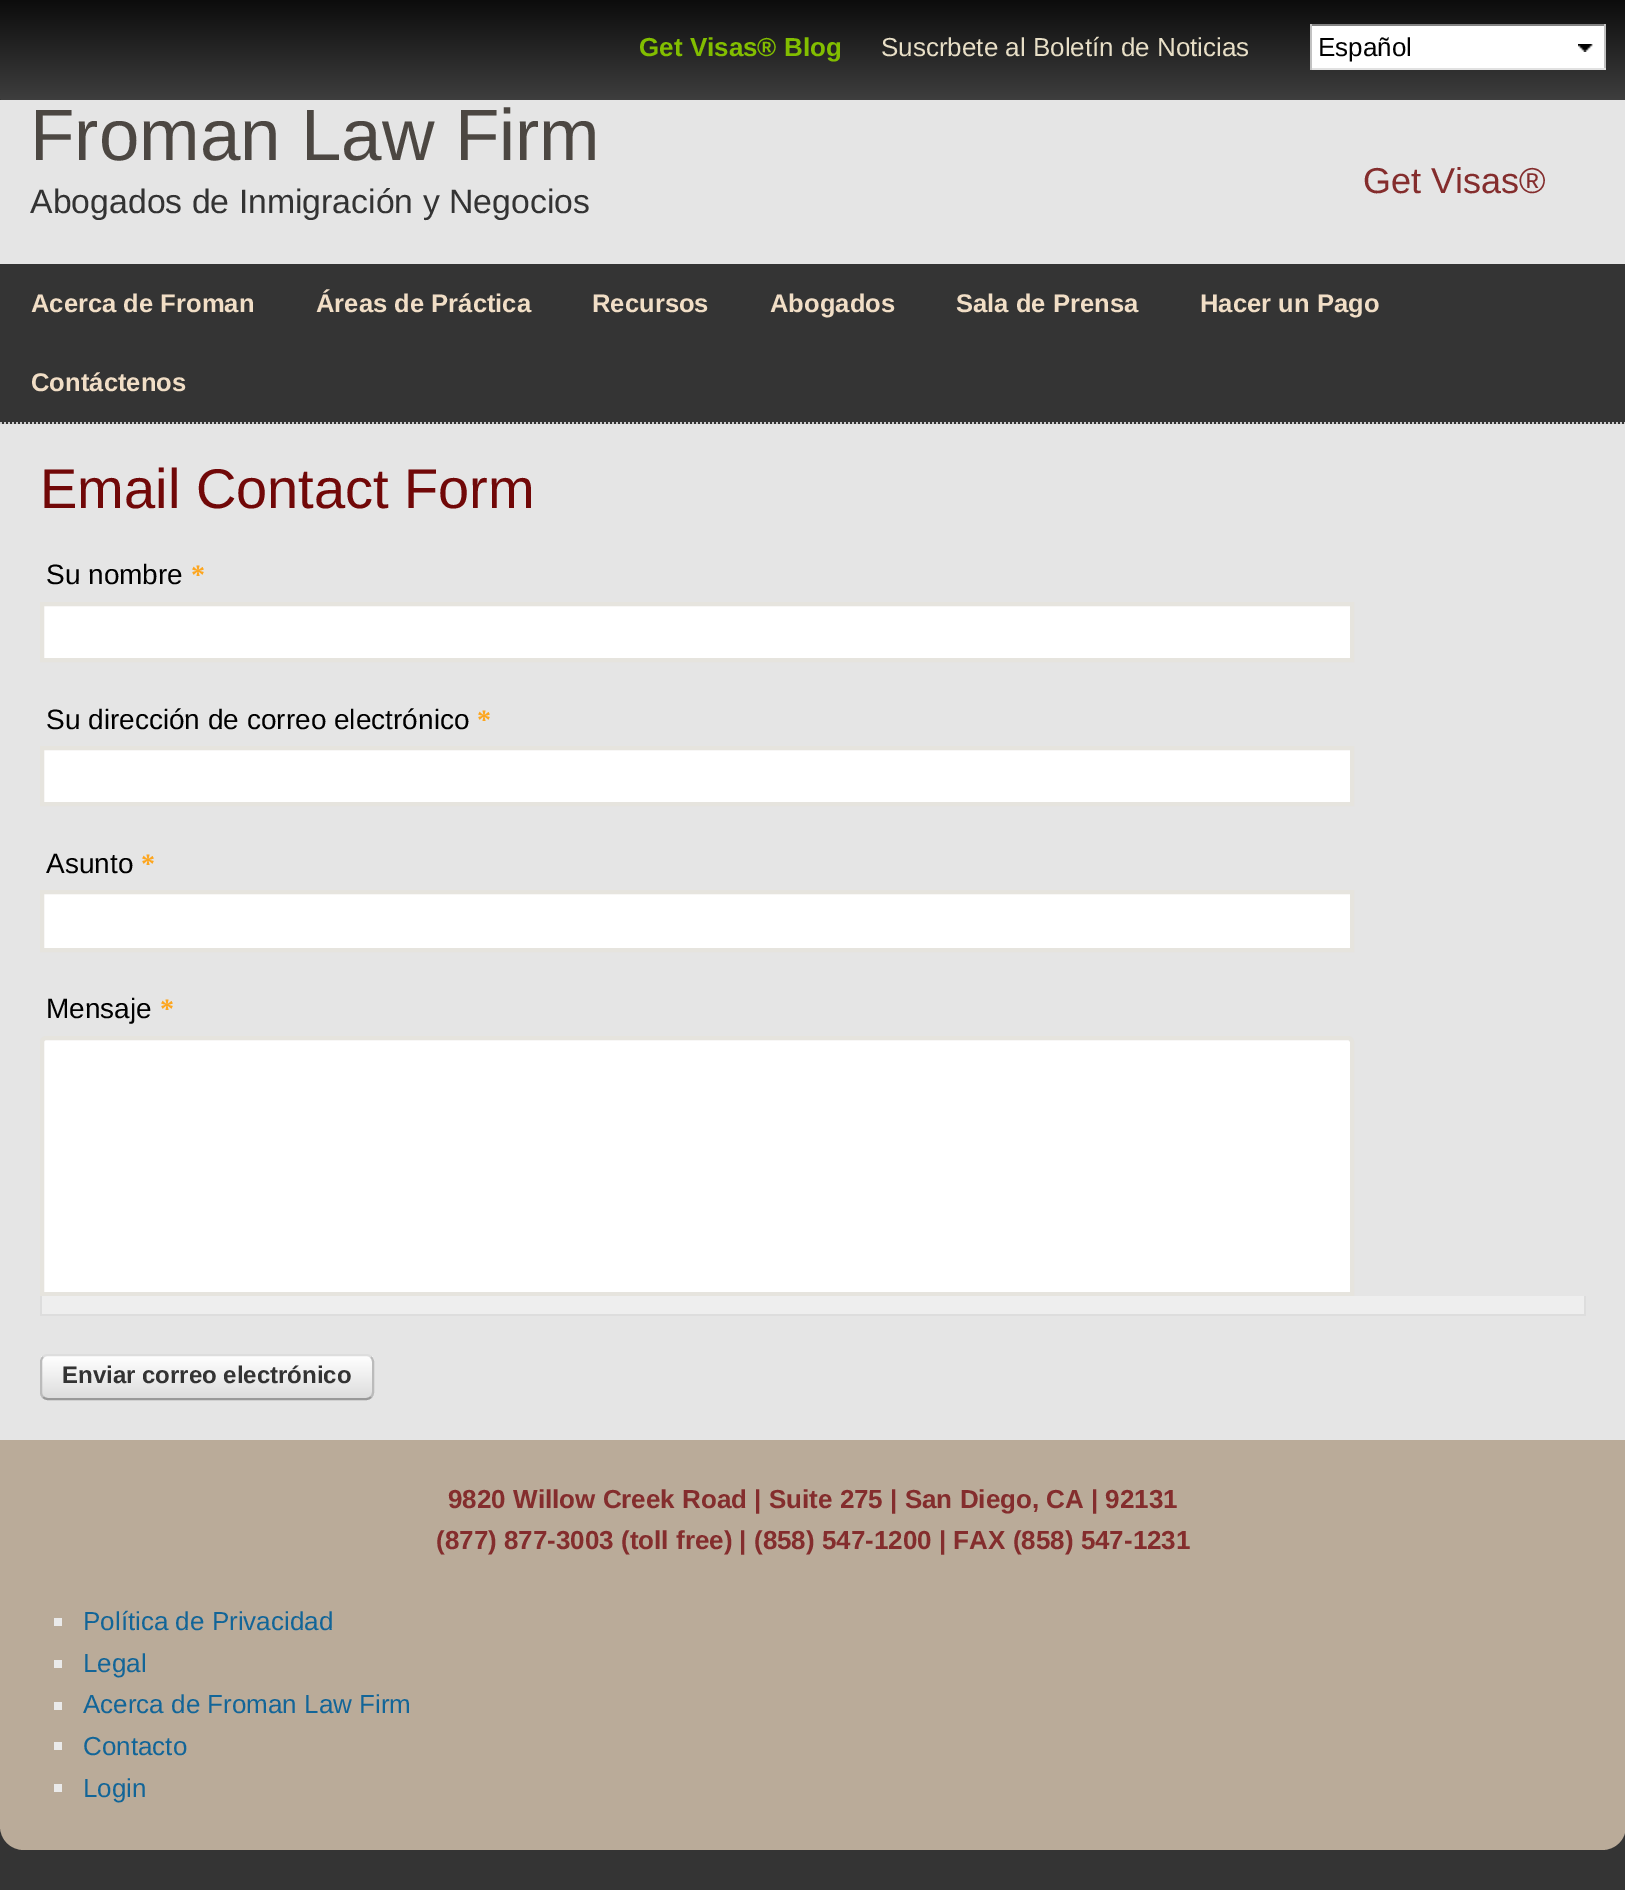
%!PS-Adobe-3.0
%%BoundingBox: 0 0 1625 1890
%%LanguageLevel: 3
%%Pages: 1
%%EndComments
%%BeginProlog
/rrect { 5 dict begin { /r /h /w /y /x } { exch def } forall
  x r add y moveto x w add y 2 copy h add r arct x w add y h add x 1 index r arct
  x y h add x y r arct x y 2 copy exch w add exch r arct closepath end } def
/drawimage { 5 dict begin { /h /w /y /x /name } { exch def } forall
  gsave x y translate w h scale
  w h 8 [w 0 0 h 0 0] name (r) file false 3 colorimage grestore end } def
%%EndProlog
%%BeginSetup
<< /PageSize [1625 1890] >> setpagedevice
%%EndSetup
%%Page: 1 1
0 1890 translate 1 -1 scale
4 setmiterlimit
0.204 setgray
0 0 1625 1890 rectfill
gsave newpath 0 0 moveto 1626 0 lineto 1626 96 lineto 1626 98 1624 100 1622 100 curveto 4 100 lineto 2 100 0 98 0 96 curveto closepath clip newpath
<< /ShadingType 2 /ColorSpace /DeviceRGB /Coords [813 0 813 100] /Extend [true true] /Function << /FunctionType 2 /Domain [0 1] /C0 [0.047 0.047 0.047] /C1 [0.243 0.243 0.243] /N 1 >> >> shfill grestore
1 setgray
1312 26 292 42 rectfill
(images/1.raw) 1578 44 15 8 drawimage
0.518 setgray
1310 24 296 2 rectfill
0.757 setgray
1604 24 2 46 rectfill
0.882 setgray
1310 68 296 2 rectfill
0.757 setgray
1310 24 2 46 rectfill
0.898 setgray
0 100 1625 164 rectfill
0.8 setgray
2 setlinewidth
[2 2] 0 setdash
newpath 0 423 moveto 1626 423 lineto stroke
0.898 setgray
0 424 1625 1016 rectfill
1 setgray
newpath 42 604 moveto 1352 604 lineto 1352 660 lineto 42 660 lineto closepath gsave fill grestore
0.902 0.894 0.871 setrgbcolor
4 setlinewidth
[] 0 setdash
stroke
1 setgray
newpath 42 748 moveto 1352 748 lineto 1352 804 lineto 42 804 lineto closepath gsave fill grestore
0.902 0.894 0.871 setrgbcolor
stroke
1 setgray
newpath 42 892 moveto 1352 892 lineto 1352 950 lineto 42 950 lineto closepath gsave fill grestore
0.902 0.894 0.871 setrgbcolor
stroke
1 setgray
newpath 46 1038 moveto 1348 1038 lineto 1350 1038 1352 1040 1352 1042 curveto 1352 1294 lineto 42 1294 lineto 42 1042 lineto 42 1040 44 1038 46 1038 curveto closepath gsave fill grestore
0.902 0.894 0.871 setrgbcolor
stroke
0.933 setgray
42 1296 1542 18 rectfill
0.867 setgray
1584 1296 2 20 rectfill
40 1314 1546 2 rectfill
40 1296 2 20 rectfill
gsave
40 1354 334 46 8 rrect clip newpath
gsave newpath 40 1356 moveto 374 1356 lineto 374 1398 lineto 40 1398 lineto closepath clip newpath
<< /ShadingType 2 /ColorSpace /DeviceRGB /Coords [42 1356 42 1398] /Extend [true true] /Function << /FunctionType 2 /Domain [0 1] /C0 [1 1 1] /C1 [0.867 0.867 0.867] /N 1 >> >> shfill grestore
grestore
2 setlinewidth
newpath 43 1357 moveto 44.5 1355.5 46 1355 48 1355 curveto 366 1355 lineto 368 1355 369.5 1355.5 371 1357 curveto stroke
0.733 setgray
newpath 371 1357 moveto 372.5 1358.5 373 1360 373 1362 curveto 373 1392 lineto 373 1394 372.5 1395.5 371 1397 curveto stroke
0.6 setgray
newpath 371 1397 moveto 369.5 1398.5 368 1399 366 1399 curveto 48 1399 lineto 46 1399 44.5 1398.5 43 1397 curveto stroke
0.733 setgray
newpath 43 1397 moveto 41.5 1395.5 41 1394 41 1392 curveto 41 1362 lineto 41 1360 41.5 1358.5 43 1357 curveto stroke
0.729 0.671 0.6 setrgbcolor
newpath 0 1440 moveto 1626 1440 lineto 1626 1826 lineto 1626 1839.5 1615.5 1850 1602 1850 curveto 24 1850 lineto 10.5 1850 0 1839.5 0 1826 curveto closepath fill
0.918 setgray
54 1618 8 8 rectfill
54 1660 8 8 rectfill
54 1702 8 8 rectfill
54 1742 8 8 rectfill
54 1784 8 8 rectfill
/LiberationSans-Bold [26 0 0 -26 0 0] selectfont
0.51 0.745 0 setrgbcolor
639 56 moveto (Get Visas® Blog) show
/LiberationSans-Regular [26 0 0 -26 0 0] selectfont
0.91 0.875 0.78 setrgbcolor
881 56 moveto (Suscrbete al Boletín de Noticias) show
0 setgray
1318 56 moveto (Español) show
/LiberationSans-Regular [72.75 0 0 -72.75 0 0] selectfont
0.298 0.278 0.259 setrgbcolor
30 160 moveto (Froman Law Firm) show
/LiberationSans-Regular [33.8 0 0 -33.8 0 0] selectfont
0.2 setgray
30 213 moveto (Abogados de Inmigración y Negocios) show
/LiberationSans-Regular [36 0 0 -36 0 0] selectfont
0.518 0.176 0.176 setrgbcolor
1363 193 moveto (Get Visas®) show
/LiberationSans-Bold [25.6 0 0 -25.6 0 0] selectfont
0.945 0.871 0.776 setrgbcolor
31 312 moveto (Acerca de Froman) show
316 312 moveto (Áreas de Práctica) show
592 312 moveto (Recursos) show
770 312 moveto (Abogados) show
956 312 moveto (Sala de Prensa) show
1200 312 moveto (Hacer un Pago) show
31 391 moveto (Contáctenos) show
/LiberationSans-Regular [56 0 0 -56 0 0] selectfont
0.443 0.031 0.031 setrgbcolor
40 508 moveto (Email Contact Form) show
/LiberationSans-Regular [28 0 0 -28 0 0] selectfont
0 setgray
46 584 moveto (Su nombre) show
/LiberationSerif-Bold [28 0 0 -28 0 0] selectfont
0.992 0.651 0.122 setrgbcolor
191 584 moveto (*) show
/LiberationSans-Regular [28 0 0 -28 0 0] selectfont
0 setgray
46 729 moveto (Su dirección de correo electrónico) show
/LiberationSerif-Bold [28 0 0 -28 0 0] selectfont
0.992 0.651 0.122 setrgbcolor
477 729 moveto (*) show
/LiberationSans-Regular [28 0 0 -28 0 0] selectfont
0 setgray
46 873 moveto (Asunto) show
/LiberationSerif-Bold [28 0 0 -28 0 0] selectfont
0.992 0.651 0.122 setrgbcolor
141 873 moveto (*) show
/LiberationSans-Regular [28 0 0 -28 0 0] selectfont
0 setgray
46 1018 moveto (Mensaje) show
/LiberationSerif-Bold [28 0 0 -28 0 0] selectfont
0.992 0.651 0.122 setrgbcolor
160 1018 moveto (*) show
/LiberationSans-Bold [24 0 0 -24 0 0] selectfont
0.2 setgray
62 1383 moveto (Enviar correo electrónico) show
/LiberationSans-Bold [26 0 0 -26 0 0] selectfont
0.518 0.176 0.176 setrgbcolor
448 1508 moveto (9820 Willow Creek Road | Suite 275 | San Diego, CA | 92131) show
436 1549 moveto (\(877\) 877-3003 \(toll free\) | \(858\) 547-1200 | FAX \(858\) 547-1231) show
/LiberationSans-Regular [26 0 0 -26 0 0] selectfont
0.071 0.396 0.596 setrgbcolor
83 1630 moveto (Política de Privacidad) show
83 1672 moveto (Legal) show
83 1713 moveto (Acerca de Froman Law Firm) show
83 1755 moveto (Contacto) show
83 1797 moveto (Login) show
showpage
%%EOF
